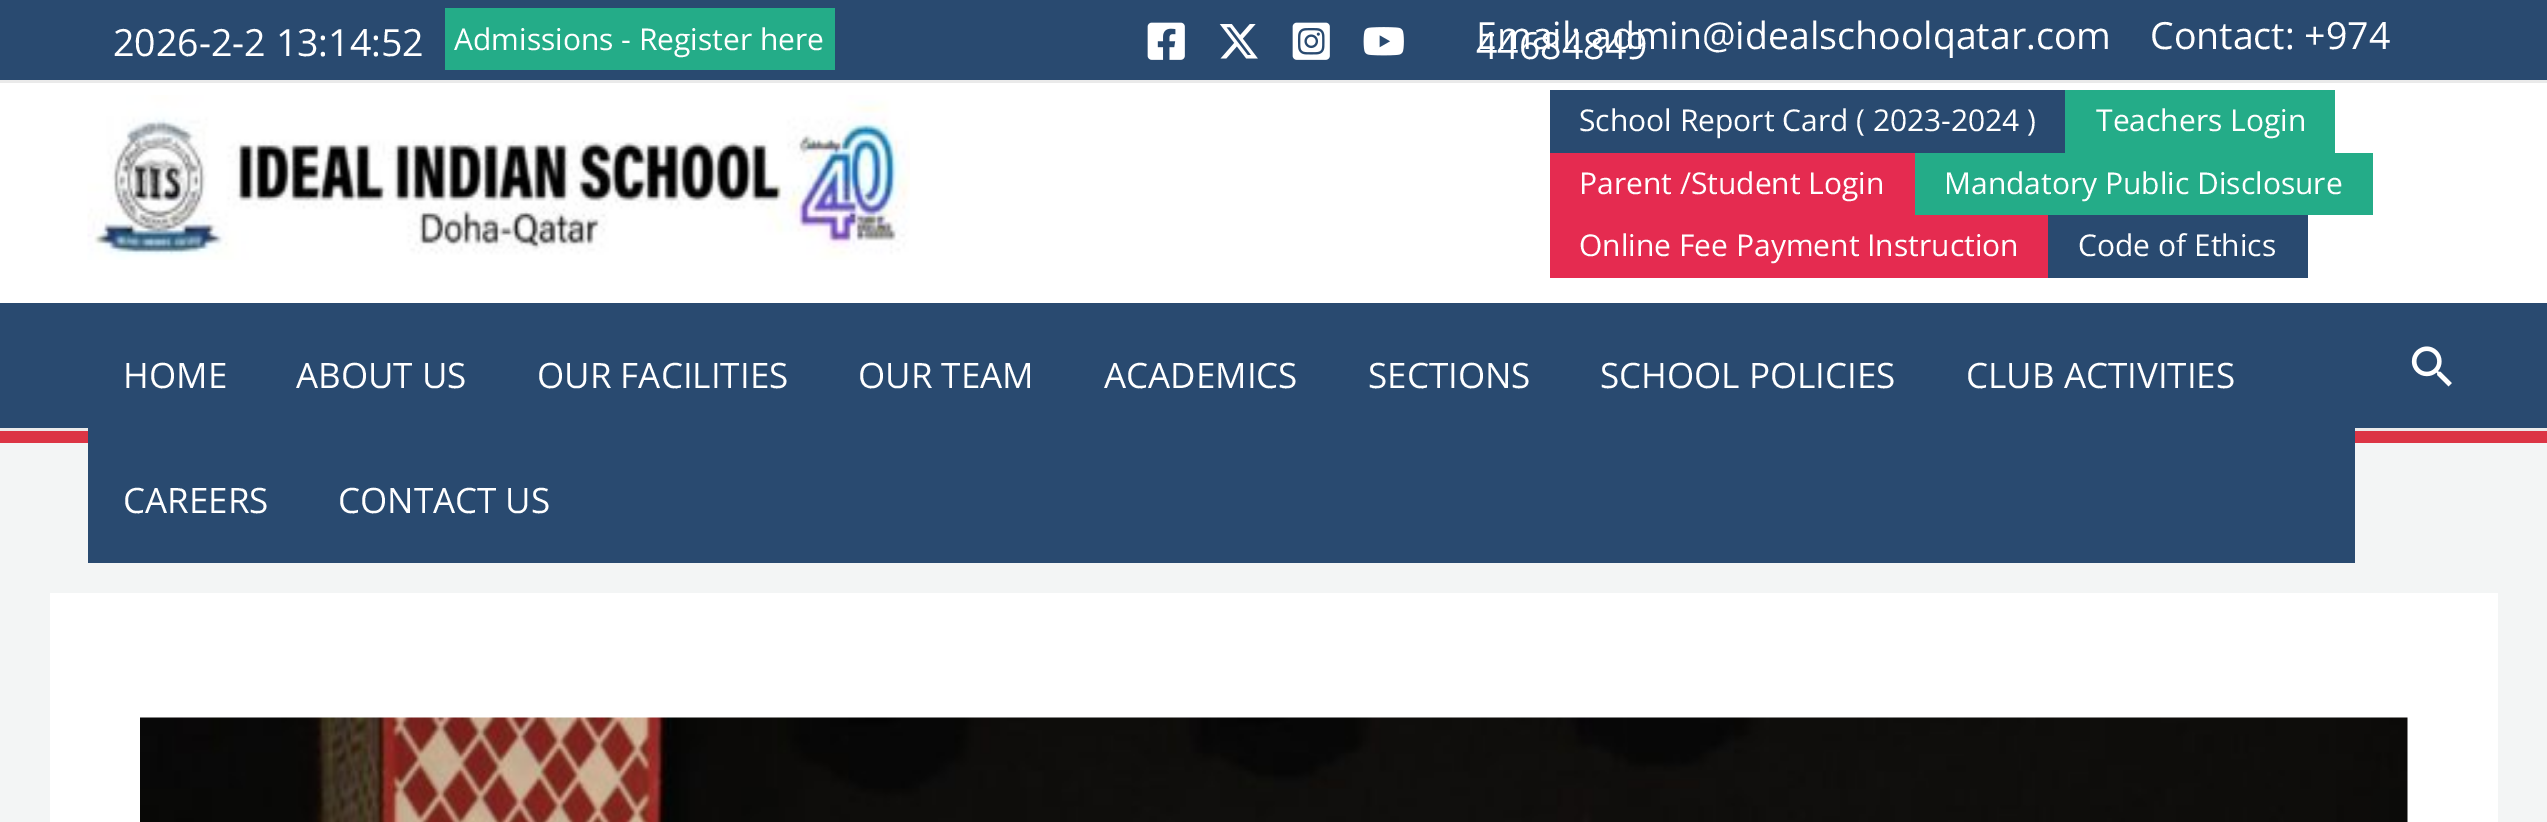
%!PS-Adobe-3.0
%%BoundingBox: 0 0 2547 822
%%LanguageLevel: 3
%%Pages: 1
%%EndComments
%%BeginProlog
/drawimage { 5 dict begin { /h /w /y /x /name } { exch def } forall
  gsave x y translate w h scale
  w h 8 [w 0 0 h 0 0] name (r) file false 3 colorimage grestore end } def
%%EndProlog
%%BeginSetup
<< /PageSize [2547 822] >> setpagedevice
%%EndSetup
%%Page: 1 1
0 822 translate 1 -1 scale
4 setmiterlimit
0.953 0.961 0.961 setrgbcolor
0 0 2547 822 rectfill
0.161 0.29 0.439 setrgbcolor
0 0 2547 80 rectfill
0.918 setgray
0 80 2547 3 rectfill
0.141 0.675 0.533 setrgbcolor
445 8 390 62 rectfill
(images/1.raw) 1147 22 38 38 drawimage
(images/2.raw) 1219 24 39 35 drawimage
(images/3.raw) 1292 22 38 38 drawimage
(images/4.raw) 1363 27 41 29 drawimage
1 setgray
0 83 2547 220 rectfill
(images/5.raw) 87 95 823 165 drawimage
0.161 0.29 0.439 setrgbcolor
1550 90 515 63 rectfill
0.141 0.675 0.533 setrgbcolor
2065 90 270 63 rectfill
0.898 0.169 0.314 setrgbcolor
1550 153 365 62 rectfill
0.141 0.675 0.533 setrgbcolor
1915 153 458 62 rectfill
0.898 0.169 0.314 setrgbcolor
1550 215 498 63 rectfill
0.161 0.29 0.439 setrgbcolor
2048 215 260 63 rectfill
0 303 2547 125 rectfill
0.863 0.208 0.271 setrgbcolor
0 431 2547 12 rectfill
0.918 setgray
0 428 2547 3 rectfill
0.161 0.29 0.439 setrgbcolor
88 428 2267 135 rectfill
(images/6.raw) 2411 346 41 41 drawimage
1 setgray
50 593 2448 229 rectfill
(images/7.raw) 140 717 2268 105 drawimage
/OpenSans-Regular [30 0 0 -30 0 0] selectfont
454 50 moveto (Admissions - Register here) show
/OpenSans-Regular [37.5 0 0 -37.5 0 0] selectfont
1476 49 moveto (Email: admin@idealschoolqatar.com    Contact: +974) show
1476 59 moveto (44684849) show
113 56 moveto (2026-2-2 13:14:52) show
/OpenSans-Regular [30 0 0 -30 0 0] selectfont
1579 131 moveto (School Report Card \( 2023-2024 \)) show
2096 131 moveto (Teachers Login) show
1579 194 moveto (Parent /Student Login) show
1944 194 moveto (Mandatory Public Disclosure) show
1579 256 moveto (Online Fee Payment Instruction) show
2078 256 moveto (Code of Ethics) show
/OpenSans-Regular [35 0 0 -35 0 0] selectfont
123 388 moveto (HOME) show
296 388 moveto (ABOUT US) show
537 388 moveto (OUR FACILITIES) show
858 388 moveto (OUR TEAM) show
1104 388 moveto (ACADEMICS) show
1368 388 moveto (SECTIONS) show
1600 388 moveto (SCHOOL POLICIES) show
1966 388 moveto (CLUB ACTIVITIES) show
123 513 moveto (CAREERS) show
338 513 moveto (CONTACT US) show
showpage
%%EOF
